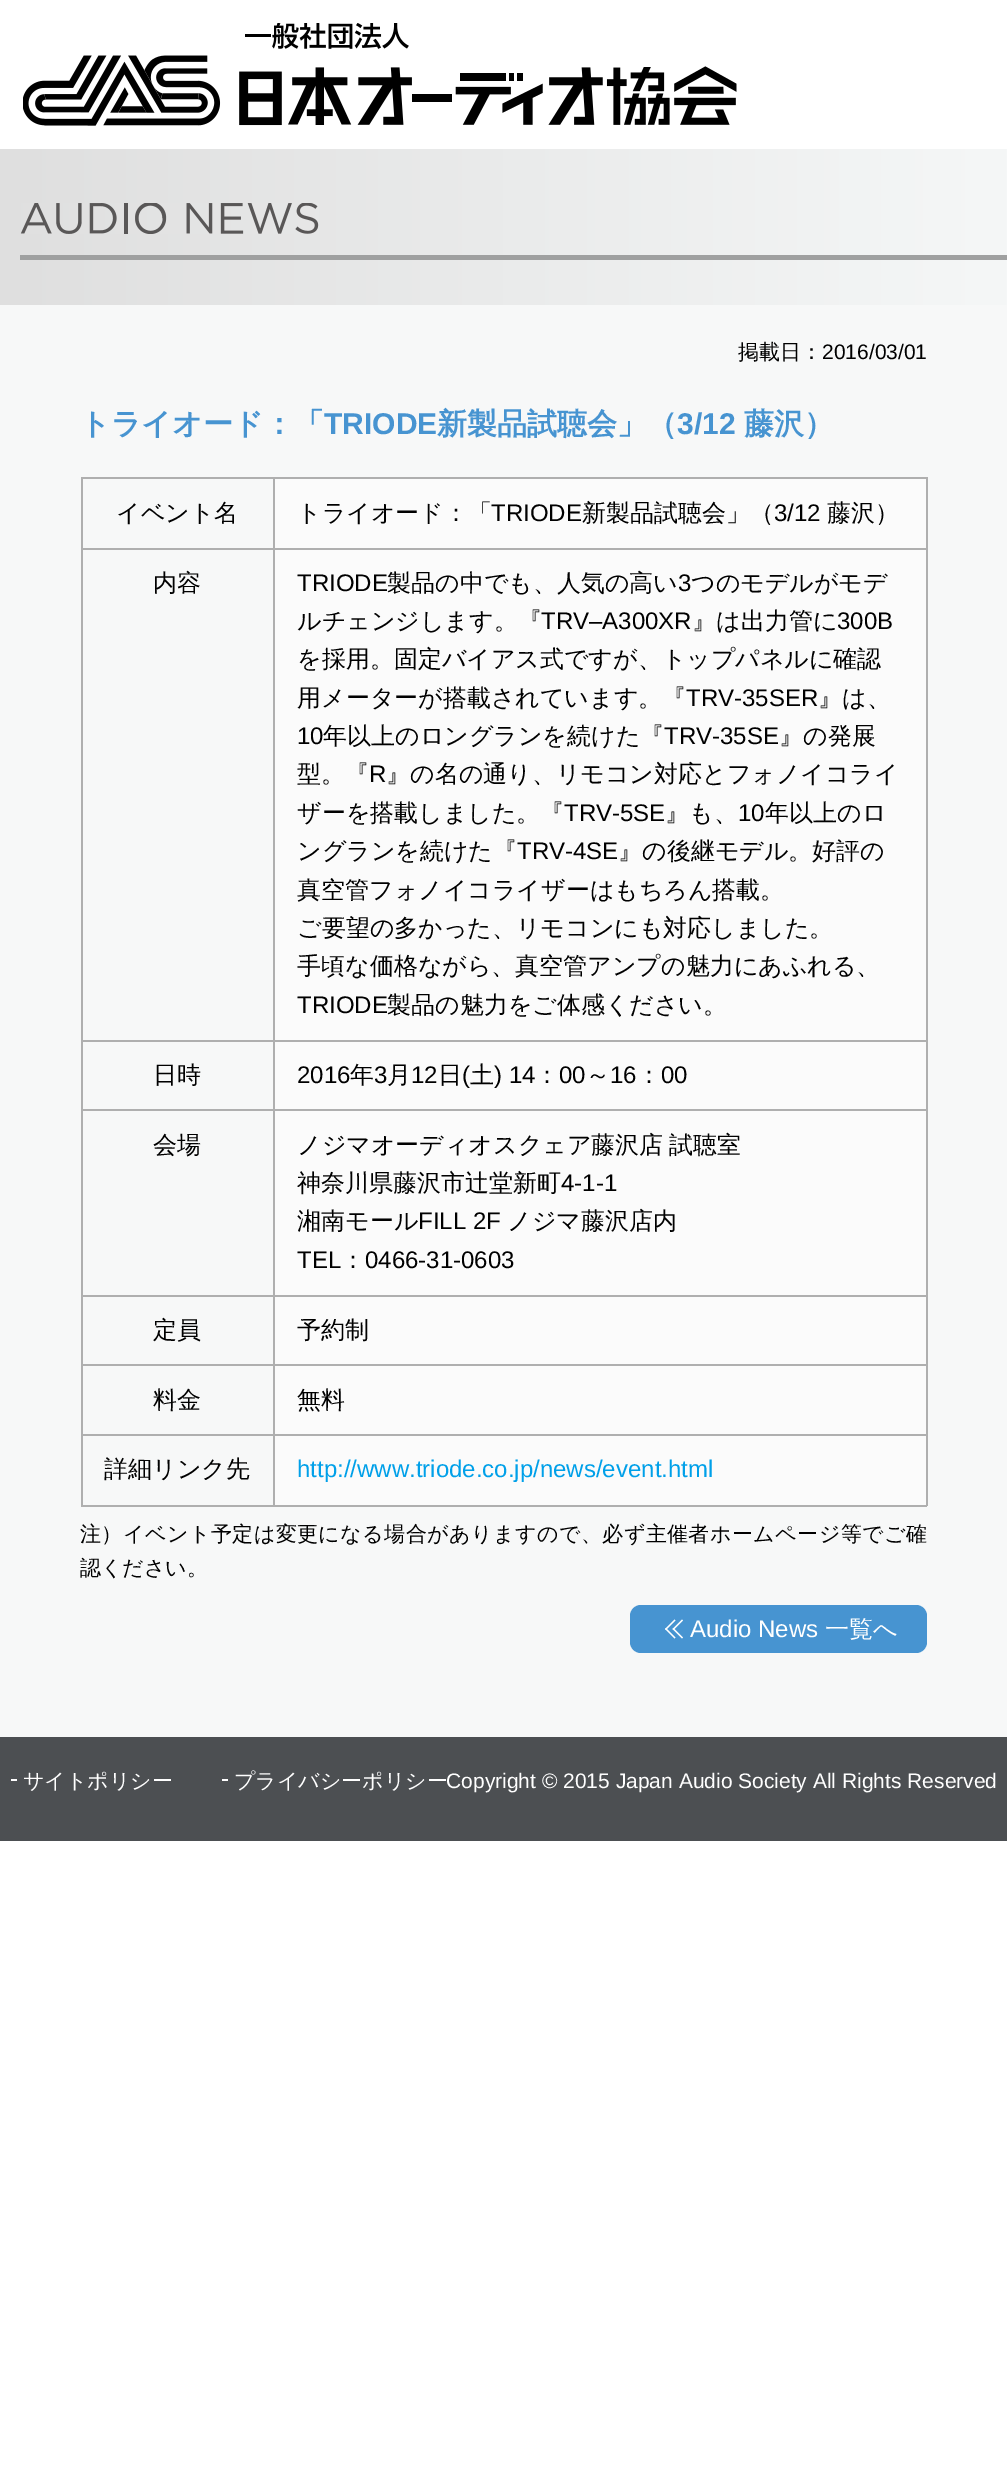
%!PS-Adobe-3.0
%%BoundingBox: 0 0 1007 2470
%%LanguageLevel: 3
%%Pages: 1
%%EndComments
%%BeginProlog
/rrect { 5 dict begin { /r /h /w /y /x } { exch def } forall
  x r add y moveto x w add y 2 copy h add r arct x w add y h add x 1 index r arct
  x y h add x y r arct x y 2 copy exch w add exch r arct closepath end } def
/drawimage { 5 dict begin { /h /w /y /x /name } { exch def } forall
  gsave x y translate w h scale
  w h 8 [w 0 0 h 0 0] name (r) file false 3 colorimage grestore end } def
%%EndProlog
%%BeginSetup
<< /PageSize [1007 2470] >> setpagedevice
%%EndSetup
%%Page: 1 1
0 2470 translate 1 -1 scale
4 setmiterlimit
1 setgray
0 0 1007 2470 rectfill
(images/1.raw) 23 23 714 103 drawimage
gsave newpath 0 149 moveto 1007 149 lineto 1007 305 lineto 0 305 lineto closepath clip newpath
<< /ShadingType 2 /ColorSpace /DeviceRGB /Coords [0 152 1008 152] /Extend [true true] /Function << /FunctionType 2 /Domain [0 1] /C0 [0.875 0.875 0.875] /C1 [0.961 0.969 0.969] /N 1 >> >> shfill grestore
0.624 0.627 0.627 setrgbcolor
20 255 987 5 rectfill
(images/2.raw) 20 203 299 31 drawimage
0.969 0.973 0.973 setrgbcolor
0 305 1007 1432 rectfill
0.686 setgray
273 477 654 2 rectfill
273 548 654 2 rectfill
273 1040 654 2 rectfill
273 1109 654 2 rectfill
273 1295 654 2 rectfill
273 1364 654 2 rectfill
273 1434 654 2 rectfill
926 1434 2 72 rectfill
273 1505 654 2 rectfill
273 1434 2 72 rectfill
81 1434 194 2 rectfill
273 1364 2 72 rectfill
81 1364 194 2 rectfill
273 1295 2 70 rectfill
81 1295 194 2 rectfill
273 1109 2 187 rectfill
81 1109 194 2 rectfill
273 1040 2 70 rectfill
81 1040 194 2 rectfill
273 548 2 493 rectfill
81 548 194 2 rectfill
273 477 2 72 rectfill
81 477 194 2 rectfill
81 1505 194 2 rectfill
81 1434 2 72 rectfill
81 1364 2 72 rectfill
81 1295 2 70 rectfill
81 1109 2 187 rectfill
81 1040 2 70 rectfill
81 548 2 493 rectfill
81 477 2 72 rectfill
0.984 setgray
275 479 651 69 rectfill
0.686 setgray
926 1364 2 72 rectfill
926 1295 2 70 rectfill
926 1109 2 187 rectfill
926 1040 2 70 rectfill
926 548 2 493 rectfill
926 477 2 72 rectfill
0.984 setgray
275 550 651 490 rectfill
275 1042 651 67 rectfill
275 1111 651 184 rectfill
275 1297 651 67 rectfill
275 1366 651 68 rectfill
275 1436 651 69 rectfill
0.278 0.58 0.82 setrgbcolor
630 1605 297 48 11 rrect fill
1 setgray
newpath 666 1628 moveto 675.5 1637.5 lineto 674.5 1638.5 lineto 665 1629 lineto closepath fill
newpath 674.5 1619.5 moveto 675.5 1620.5 lineto 666 1630 lineto 665 1629 lineto closepath fill
newpath 673.5 1628 moveto 683 1637.5 lineto 682 1638.5 lineto 672.5 1629 lineto closepath fill
newpath 682 1619.5 moveto 683 1620.5 lineto 673.5 1630 lineto 672.5 1629 lineto closepath fill
0.298 0.31 0.322 setrgbcolor
0 1737 1007 104 rectfill
1 setgray
11 1779 6 2 rectfill
222 1779 6 2 rectfill
/WenQuanYiZenHei-Medium [21 0 0 -21 0 0] selectfont
0 setgray
738 359 moveto (掲載日：) show
/LiberationSans-Regular [21 0 0 -21 0 0] selectfont
822 359 moveto (2016/03/01) show
/WenQuanYiZenHei-Bold [30 0 0 -30 0 0] selectfont
0.278 0.58 0.82 setrgbcolor
80 434 moveto (トライオード：「) show
/LiberationSans-Bold [30 0 0 -30 0 0] selectfont
324 434 moveto (TRIODE) show
/WenQuanYiZenHei-Bold [30 0 0 -30 0 0] selectfont
437 434 moveto (新製品試聴会」（) show
/LiberationSans-Bold [30 0 0 -30 0 0] selectfont
677 434 moveto (3/12) show
/WenQuanYiZenHei-Bold [30 0 0 -30 0 0] selectfont
744 434 moveto (藤沢）) show
/WenQuanYiZenHei-Medium [24 0 0 -24 0 0] selectfont
0 setgray
116 521 moveto (イベント名) show
297 521 moveto (トライオード：「) show
/LiberationSans-Regular [24 0 0 -24 0 0] selectfont
491 521 moveto (TRIODE) show
/WenQuanYiZenHei-Medium [24 0 0 -24 0 0] selectfont
582 521 moveto (新製品試聴会」（) show
/LiberationSans-Regular [24 0 0 -24 0 0] selectfont
774 521 moveto (3/12) show
/WenQuanYiZenHei-Medium [24 0 0 -24 0 0] selectfont
827 521 moveto (藤沢）) show
153 591 moveto (内容) show
/LiberationSans-Regular [24 0 0 -24 0 0] selectfont
297 591 moveto (TRIODE) show
/WenQuanYiZenHei-Medium [24 0 0 -24 0 0] selectfont
387 591 moveto (製品の中でも、人気の高い) show
/LiberationSans-Regular [24 0 0 -24 0 0] selectfont
678 591 moveto (3) show
/WenQuanYiZenHei-Medium [24 0 0 -24 0 0] selectfont
691 591 moveto (つのモデルがモデ) show
297 629 moveto (ルチェンジします。『) show
/LiberationSans-Regular [24 0 0 -24 0 0] selectfont
541 629 moveto (TRV–A300XR) show
/WenQuanYiZenHei-Medium [24 0 0 -24 0 0] selectfont
692 629 moveto (』は出力管に) show
/LiberationSans-Regular [24 0 0 -24 0 0] selectfont
837 629 moveto (300B) show
/WenQuanYiZenHei-Medium [24 0 0 -24 0 0] selectfont
297 667 moveto (を採用。固定バイアス式ですが、トップパネルに確認) show
297 706 moveto (用メーターが搭載されています。『) show
/LiberationSans-Regular [24 0 0 -24 0 0] selectfont
686 706 moveto (TRV-35SER) show
/WenQuanYiZenHei-Medium [24 0 0 -24 0 0] selectfont
818 706 moveto (』は、) show
/LiberationSans-Regular [24 0 0 -24 0 0] selectfont
297 744 moveto (10) show
/WenQuanYiZenHei-Medium [24 0 0 -24 0 0] selectfont
323 744 moveto (年以上のロングランを続けた『) show
/LiberationSans-Regular [24 0 0 -24 0 0] selectfont
664 744 moveto (TRV-35SE) show
/WenQuanYiZenHei-Medium [24 0 0 -24 0 0] selectfont
779 744 moveto (』の発展) show
297 782 moveto (型。『) show
/LiberationSans-Regular [24 0 0 -24 0 0] selectfont
369 782 moveto (R) show
/WenQuanYiZenHei-Medium [24 0 0 -24 0 0] selectfont
386 782 moveto (』の名の通り、リモコン対応とフォノイコライ) show
297 821 moveto (ザーを搭載しました。『) show
/LiberationSans-Regular [24 0 0 -24 0 0] selectfont
564 821 moveto (TRV-5SE) show
/WenQuanYiZenHei-Medium [24 0 0 -24 0 0] selectfont
665 821 moveto (』も、) show
/LiberationSans-Regular [24 0 0 -24 0 0] selectfont
738 821 moveto (10) show
/WenQuanYiZenHei-Medium [24 0 0 -24 0 0] selectfont
765 821 moveto (年以上のロ) show
297 859 moveto (ングランを続けた『) show
/LiberationSans-Regular [24 0 0 -24 0 0] selectfont
517 859 moveto (TRV-4SE) show
/WenQuanYiZenHei-Medium [24 0 0 -24 0 0] selectfont
618 859 moveto (』の後継モデル。好評の) show
297 898 moveto (真空管フォノイコライザーはもちろん搭載。) show
297 936 moveto (ご要望の多かった、リモコンにも対応しました。) show
297 974 moveto (手頃な価格ながら、真空管アンプの魅力にあふれる、) show
/LiberationSans-Regular [24 0 0 -24 0 0] selectfont
297 1013 moveto (TRIODE) show
/WenQuanYiZenHei-Medium [24 0 0 -24 0 0] selectfont
387 1013 moveto (製品の魅力をご体感ください。) show
153 1083 moveto (日時) show
/LiberationSans-Regular [24 0 0 -24 0 0] selectfont
297 1083 moveto (2016) show
/WenQuanYiZenHei-Medium [24 0 0 -24 0 0] selectfont
350 1083 moveto (年) show
/LiberationSans-Regular [24 0 0 -24 0 0] selectfont
374 1083 moveto (3) show
/WenQuanYiZenHei-Medium [24 0 0 -24 0 0] selectfont
387 1083 moveto (月) show
/LiberationSans-Regular [24 0 0 -24 0 0] selectfont
411 1083 moveto (12) show
/WenQuanYiZenHei-Medium [24 0 0 -24 0 0] selectfont
438 1083 moveto (日) show
/LiberationSans-Regular [24 0 0 -24 0 0] selectfont
462 1083 moveto (\() show
/WenQuanYiZenHei-Medium [24 0 0 -24 0 0] selectfont
470 1083 moveto (土) show
/LiberationSans-Regular [24 0 0 -24 0 0] selectfont
494 1083 moveto (\) 14) show
/WenQuanYiZenHei-Medium [24 0 0 -24 0 0] selectfont
535 1083 moveto (：) show
/LiberationSans-Regular [24 0 0 -24 0 0] selectfont
559 1083 moveto (00) show
/WenQuanYiZenHei-Medium [24 0 0 -24 0 0] selectfont
586 1083 moveto (～) show
/LiberationSans-Regular [24 0 0 -24 0 0] selectfont
610 1083 moveto (16) show
/WenQuanYiZenHei-Medium [24 0 0 -24 0 0] selectfont
637 1083 moveto (：) show
/LiberationSans-Regular [24 0 0 -24 0 0] selectfont
661 1083 moveto (00) show
/WenQuanYiZenHei-Medium [24 0 0 -24 0 0] selectfont
153 1153 moveto (会場) show
297 1153 moveto -1 0 32 (ノジマオーディオスクェア藤沢店 試聴室) widthshow
297 1191 moveto (神奈川県藤沢市辻堂新町) show
/LiberationSans-Regular [24 0 0 -24 0 0] selectfont
561 1191 moveto (4-1-1) show
/WenQuanYiZenHei-Medium [24 0 0 -24 0 0] selectfont
297 1229 moveto (湘南モール) show
/LiberationSans-Regular [24 0 0 -24 0 0] selectfont
418 1229 moveto (FILL 2F) show
/WenQuanYiZenHei-Medium [24 0 0 -24 0 0] selectfont
507 1229 moveto (ノジマ藤沢店内) show
/LiberationSans-Regular [24 0 0 -24 0 0] selectfont
297 1268 moveto (TEL) show
/WenQuanYiZenHei-Medium [24 0 0 -24 0 0] selectfont
341 1268 moveto (：) show
/LiberationSans-Regular [24 0 0 -24 0 0] selectfont
365 1268 moveto (0466-31-0603) show
/WenQuanYiZenHei-Medium [24 0 0 -24 0 0] selectfont
153 1338 moveto (定員) show
297 1338 moveto (予約制) show
153 1408 moveto (料金) show
297 1408 moveto (無料) show
104 1477 moveto (詳細リンク先) show
/LiberationSans-Regular [24 0 0 -24 0 0] selectfont
0 0.627 0.914 setrgbcolor
297 1477 moveto (http://www.triode.co.jp/news/event.html) show
/WenQuanYiZenHei-Medium [21 0 0 -21 0 0] selectfont
0 setgray
80 1541 moveto 0.45 0 (注）イベント予定は変更になる場合がありますので、必ず主催者ホームページ等でご確) ashow
80 1575 moveto (認ください。) show
/LiberationSans-Regular [24 0 0 -24 0 0] selectfont
1 setgray
690 1637 moveto (Audio News) show
/WenQuanYiZenHei-Medium [24 0 0 -24 0 0] selectfont
825 1637 moveto (一覧へ) show
/WenQuanYiZenHei-Medium [21 0 0 -21 0 0] selectfont
23 1788 moveto (サイトポリシー) show
234 1788 moveto (プライバシーポリシー) show
/LiberationSans-Regular [21 0 0 -21 0 0] selectfont
446 1788 moveto (Copyright © 2015 Japan Audio Society All Rights Reserved) show
showpage
%%EOF
